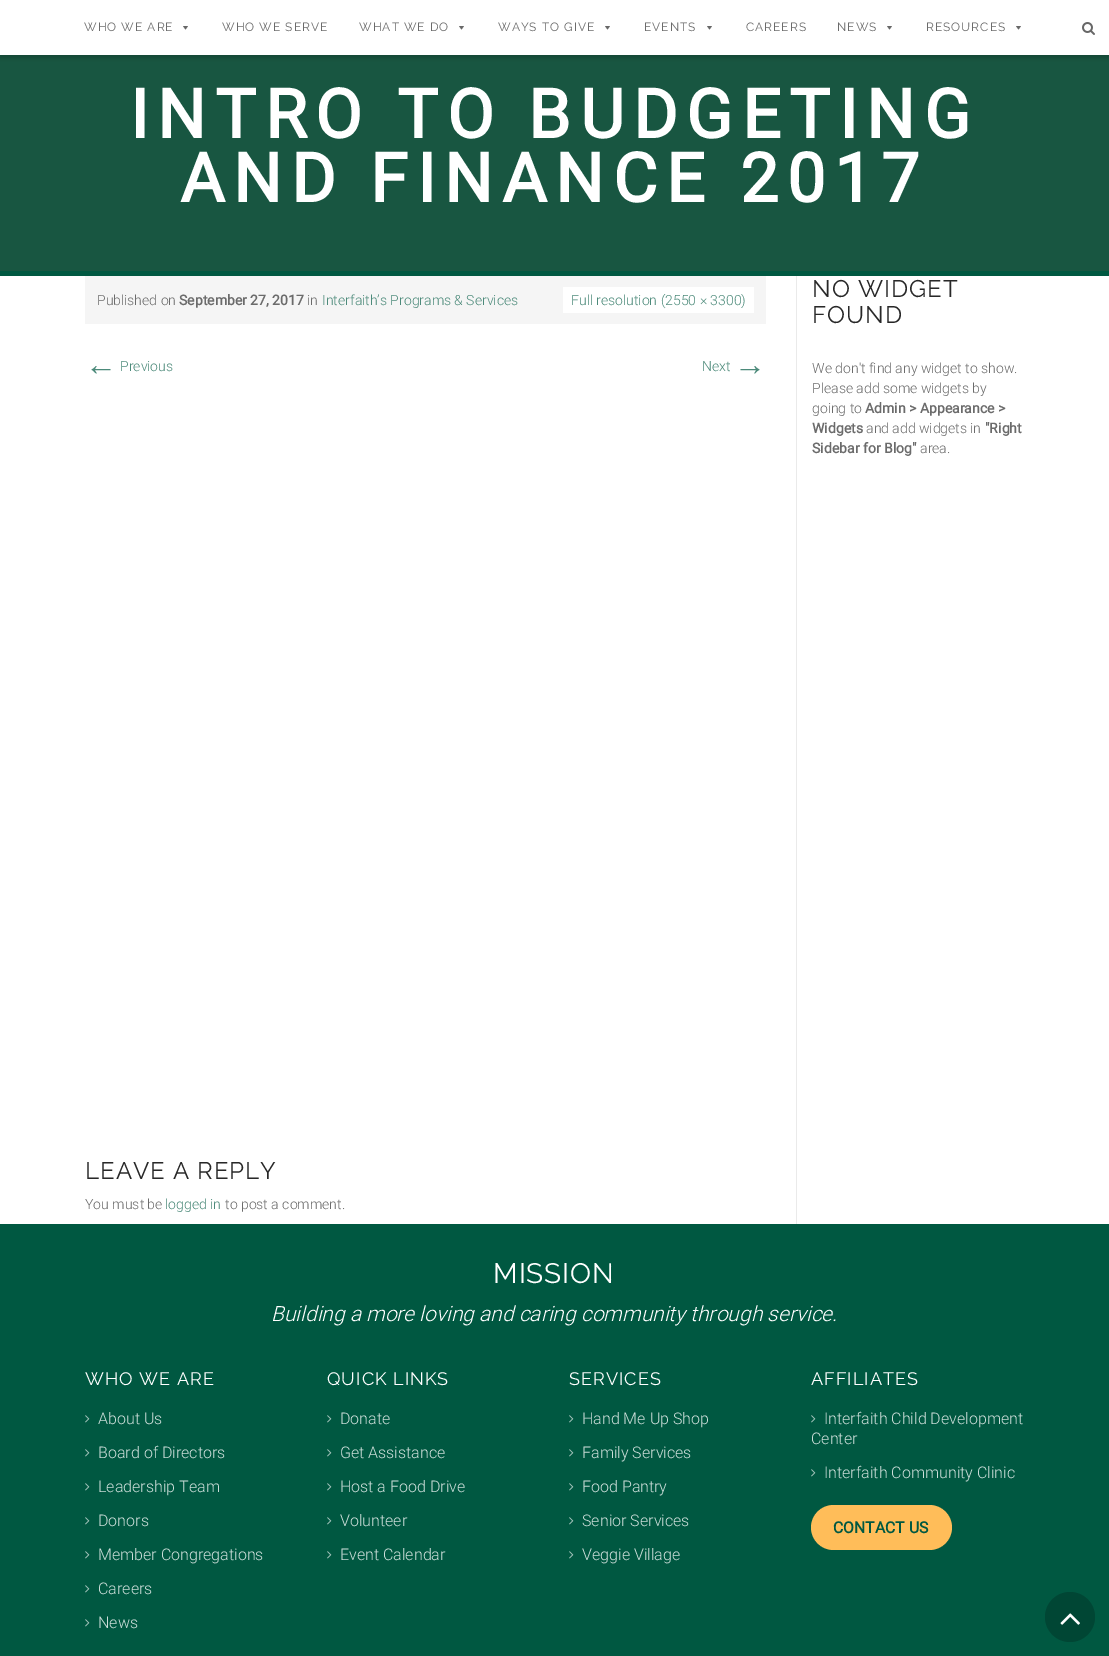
%!PS-Adobe-3.0
%%BoundingBox: 0 0 1109 1656
%%LanguageLevel: 3
%%Pages: 1
%%EndComments
%%BeginProlog
/setalpha { dup .setfillconstantalpha .setstrokeconstantalpha } def
/rrect { 5 dict begin { /r /h /w /y /x } { exch def } forall
  x r add y moveto x w add y 2 copy h add r arct x w add y h add x 1 index r arct
  x y h add x y r arct x y 2 copy exch w add exch r arct closepath end } def
/softshadow { 12 dict begin { /a /b /q /h /w /y /x } { exch def } forall gsave /was 0 def
  9 -2 -9 { dup b mul 4 div /e exch def 1 sub .425 mul 2.718 exch exp 1 add a .99 .min exch div /now exch def
    1 1 now sub 1 was sub div sub setalpha /was now def
    w h .min e 2 mul add 0 gt { x e sub y e sub w e 2 mul add h e 2 mul add
      q e add b .6 mul add w h .min 2 div e add .min 0 .max rrect fill } if } for grestore end } def
/drawimage { 5 dict begin { /h /w /y /x /name } { exch def } forall
  gsave x y translate w h scale
  w h 8 [w 0 0 h 0 0] name (r) file false 3 colorimage grestore end } def
%%EndProlog
%%BeginSetup
<< /PageSize [1109 1656] /PageUsesTransparency true >> setpagedevice
%%EndSetup
%%Page: 1 1
0 .pushpdf14devicefilter
0 1656 translate 1 -1 scale
4 setmiterlimit
0 0.345 0.255 setrgbcolor
0 0 1109 1656 rectfill
0.094 0.337 0.255 setrgbcolor
0 55 1109 216 rectfill
0 setgray
0 2 1109 55 0 2.5 0.2 softshadow
1 setgray
0 0 1109 55 rectfill
0.404 setgray
newpath 188 26 moveto 185.5 29.5 lineto 183 26 lineto closepath fill
newpath 464 26 moveto 461.5 29.5 lineto 459 26 lineto closepath fill
newpath 610 26 moveto 607.5 29.5 lineto 605 26 lineto closepath fill
newpath 712 26 moveto 709.5 29.5 lineto 707 26 lineto closepath fill
newpath 892 26 moveto 889.5 29.5 lineto 887 26 lineto closepath fill
newpath 1021 26 moveto 1018.5 29.5 lineto 1016 26 lineto closepath fill
(images/1.raw) 1082 22 13 13 drawimage
1 setgray
0 276 1109 948 rectfill
0.918 setgray
796 276 1 948 rectfill
0.961 setgray
85 276 681 48 rectfill
1 setgray
563 287 191 26 rectfill
(images/2.raw) 85 1415 5 8 drawimage
(images/2.raw) 85 1449 5 8 drawimage
(images/2.raw) 85 1483 5 8 drawimage
(images/2.raw) 85 1517 5 8 drawimage
(images/2.raw) 85 1551 5 8 drawimage
(images/2.raw) 85 1585 5 8 drawimage
(images/2.raw) 85 1619 5 8 drawimage
(images/2.raw) 327 1415 5 8 drawimage
(images/2.raw) 327 1449 5 8 drawimage
(images/2.raw) 327 1483 5 8 drawimage
(images/2.raw) 327 1517 5 8 drawimage
(images/2.raw) 327 1551 5 8 drawimage
(images/2.raw) 569 1415 5 8 drawimage
(images/2.raw) 569 1449 5 8 drawimage
(images/2.raw) 569 1483 5 8 drawimage
(images/2.raw) 569 1517 5 8 drawimage
(images/2.raw) 569 1551 5 8 drawimage
(images/2.raw) 811 1415 5 8 drawimage
(images/2.raw) 811 1469 5 8 drawimage
1 0.741 0.349 setrgbcolor
811 1505 141 45 22.5 rrect fill
0 0.275 0.204 setrgbcolor
newpath 1070 1617 25 0 360 arc closepath fill
(images/3.raw) 1060 1613 20 12 drawimage
/Raleway-Regular [12 0 0 -12 0 0] selectfont
0.42 setgray
84 31 moveto 1 0 (WHO WE ARE) ashow
222 31 moveto 1 0 (WHO WE SERVE) ashow
359 31 moveto 1 0 (WHAT WE DO) ashow
498 31 moveto 1 0 (WAYS TO GIVE) ashow
644 31 moveto 1 0 (EVENTS) ashow
746 31 moveto 1 0 (CAREERS) ashow
837 31 moveto 1 0 (NEWS) ashow
926 31 moveto 1 0 (RESOURCES) ashow
/Roboto-Bold [68 0 0 -68 0 0] selectfont
1 setgray
130 138 moveto 9 0 (INTRO TO BUDGETING) ashow
180 202 moveto 9 0 (AND FINANCE 2017) ashow
/Roboto-Light [14 0 0 -14 0 0] selectfont
0.42 setgray
97 305 moveto (Published on) show
/Roboto-Bold [14 0 0 -14 0 0] selectfont
179 305 moveto (September 27, 2017) show
/Roboto-Light [14 0 0 -14 0 0] selectfont
307 305 moveto (in) show
0.298 0.541 0.478 setrgbcolor
322 305 moveto (Interfaith’s Programs & Services) show
571 305 moveto (Full resolution \(2550 × 3300\)) show
/LiberationSans-Regular [32 0 0 -32 0 0] selectfont
85 375 moveto (←) show
/Roboto-Light [14 0 0 -14 0 0] selectfont
120 371 moveto (Previous) show
702 371 moveto (Next) show
/LiberationSans-Regular [32 0 0 -32 0 0] selectfont
734 375 moveto (→) show
/Raleway-Regular [24 0 0 -24 0 0] selectfont
0.157 setgray
85 1179 moveto 1 0 (LEAVE A REPLY) ashow
/Roboto-Light [14 0 0 -14 0 0] selectfont
0.42 setgray
85 1209 moveto (You must be) show
0.298 0.541 0.478 setrgbcolor
165 1209 moveto (logged in) show
0.42 setgray
225 1209 moveto (to post a comment.) show
/Raleway-Regular [24 0 0 -24 0 0] selectfont
0.157 setgray
812 297 moveto 1 0 (NO WIDGET) ashow
812 323 moveto 1 0 (FOUND) ashow
/Roboto-Light [14 0 0 -14 0 0] selectfont
0.42 setgray
812 373 moveto (We don't find any widget to show.) show
812 393 moveto (Please add some widgets by) show
812 413 moveto (going to) show
/Roboto-Bold [14 0 0 -14 0 0] selectfont
865 413 moveto (Admin > Appearance >) show
812 433 moveto (Widgets) show
/Roboto-Light [14 0 0 -14 0 0] selectfont
866 433 moveto (and add widgets in) show
/Roboto-Bold [14 0 0 -14 0 0] selectfont
985 433 moveto ("Right) show
812 453 moveto (Sidebar for Blog") show
/Roboto-Light [14 0 0 -14 0 0] selectfont
920 453 moveto (area.) show
/Raleway-Regular [28 0 0 -28 0 0] selectfont
1 setgray
493 1283 moveto 1 0 (MISSION) ashow
/Roboto-LightItalic [21 0 0 -21 0 0] selectfont
271 1321 moveto (Building a more loving and caring community through service.) show
/Raleway-Regular [18 0 0 -18 0 0] selectfont
85 1385 moveto 1 0 (WHO WE ARE) ashow
/Roboto-Light [16 0 0 -16 0 0] selectfont
0.8 0.871 0.851 setrgbcolor
98 1424 moveto (About Us) show
98 1458 moveto (Board of Directors) show
98 1492 moveto (Leadership Team) show
98 1526 moveto (Donors) show
98 1560 moveto (Member Congregations) show
98 1594 moveto (Careers) show
98 1628 moveto (News) show
/Raleway-Regular [18 0 0 -18 0 0] selectfont
1 setgray
327 1385 moveto 1 0 (QUICK LINKS) ashow
/Roboto-Light [16 0 0 -16 0 0] selectfont
0.8 0.871 0.851 setrgbcolor
340 1424 moveto (Donate) show
340 1458 moveto (Get Assistance) show
340 1492 moveto (Host a Food Drive) show
340 1526 moveto (Volunteer) show
340 1560 moveto (Event Calendar) show
/Raleway-Regular [18 0 0 -18 0 0] selectfont
1 setgray
569 1385 moveto 1 0 (SERVICES) ashow
/Roboto-Light [16 0 0 -16 0 0] selectfont
0.8 0.871 0.851 setrgbcolor
582 1424 moveto (Hand Me Up Shop) show
582 1458 moveto (Family Services) show
582 1492 moveto (Food Pantry) show
582 1526 moveto (Senior Services) show
582 1560 moveto (Veggie Village) show
/Raleway-Regular [18 0 0 -18 0 0] selectfont
1 setgray
811 1385 moveto 1 0 (AFFILIATES) ashow
/Roboto-Light [16 0 0 -16 0 0] selectfont
0.8 0.871 0.851 setrgbcolor
824 1424 moveto (Interfaith Child Development) show
811 1444 moveto (Center) show
824 1478 moveto (Interfaith Community Clinic) show
/Roboto-Bold [15.75 0 0 -15.75 0 0] selectfont
0 0.345 0.255 setrgbcolor
833 1533 moveto (CONTACT US) show
.poppdf14devicefilter showpage
%%EOF
